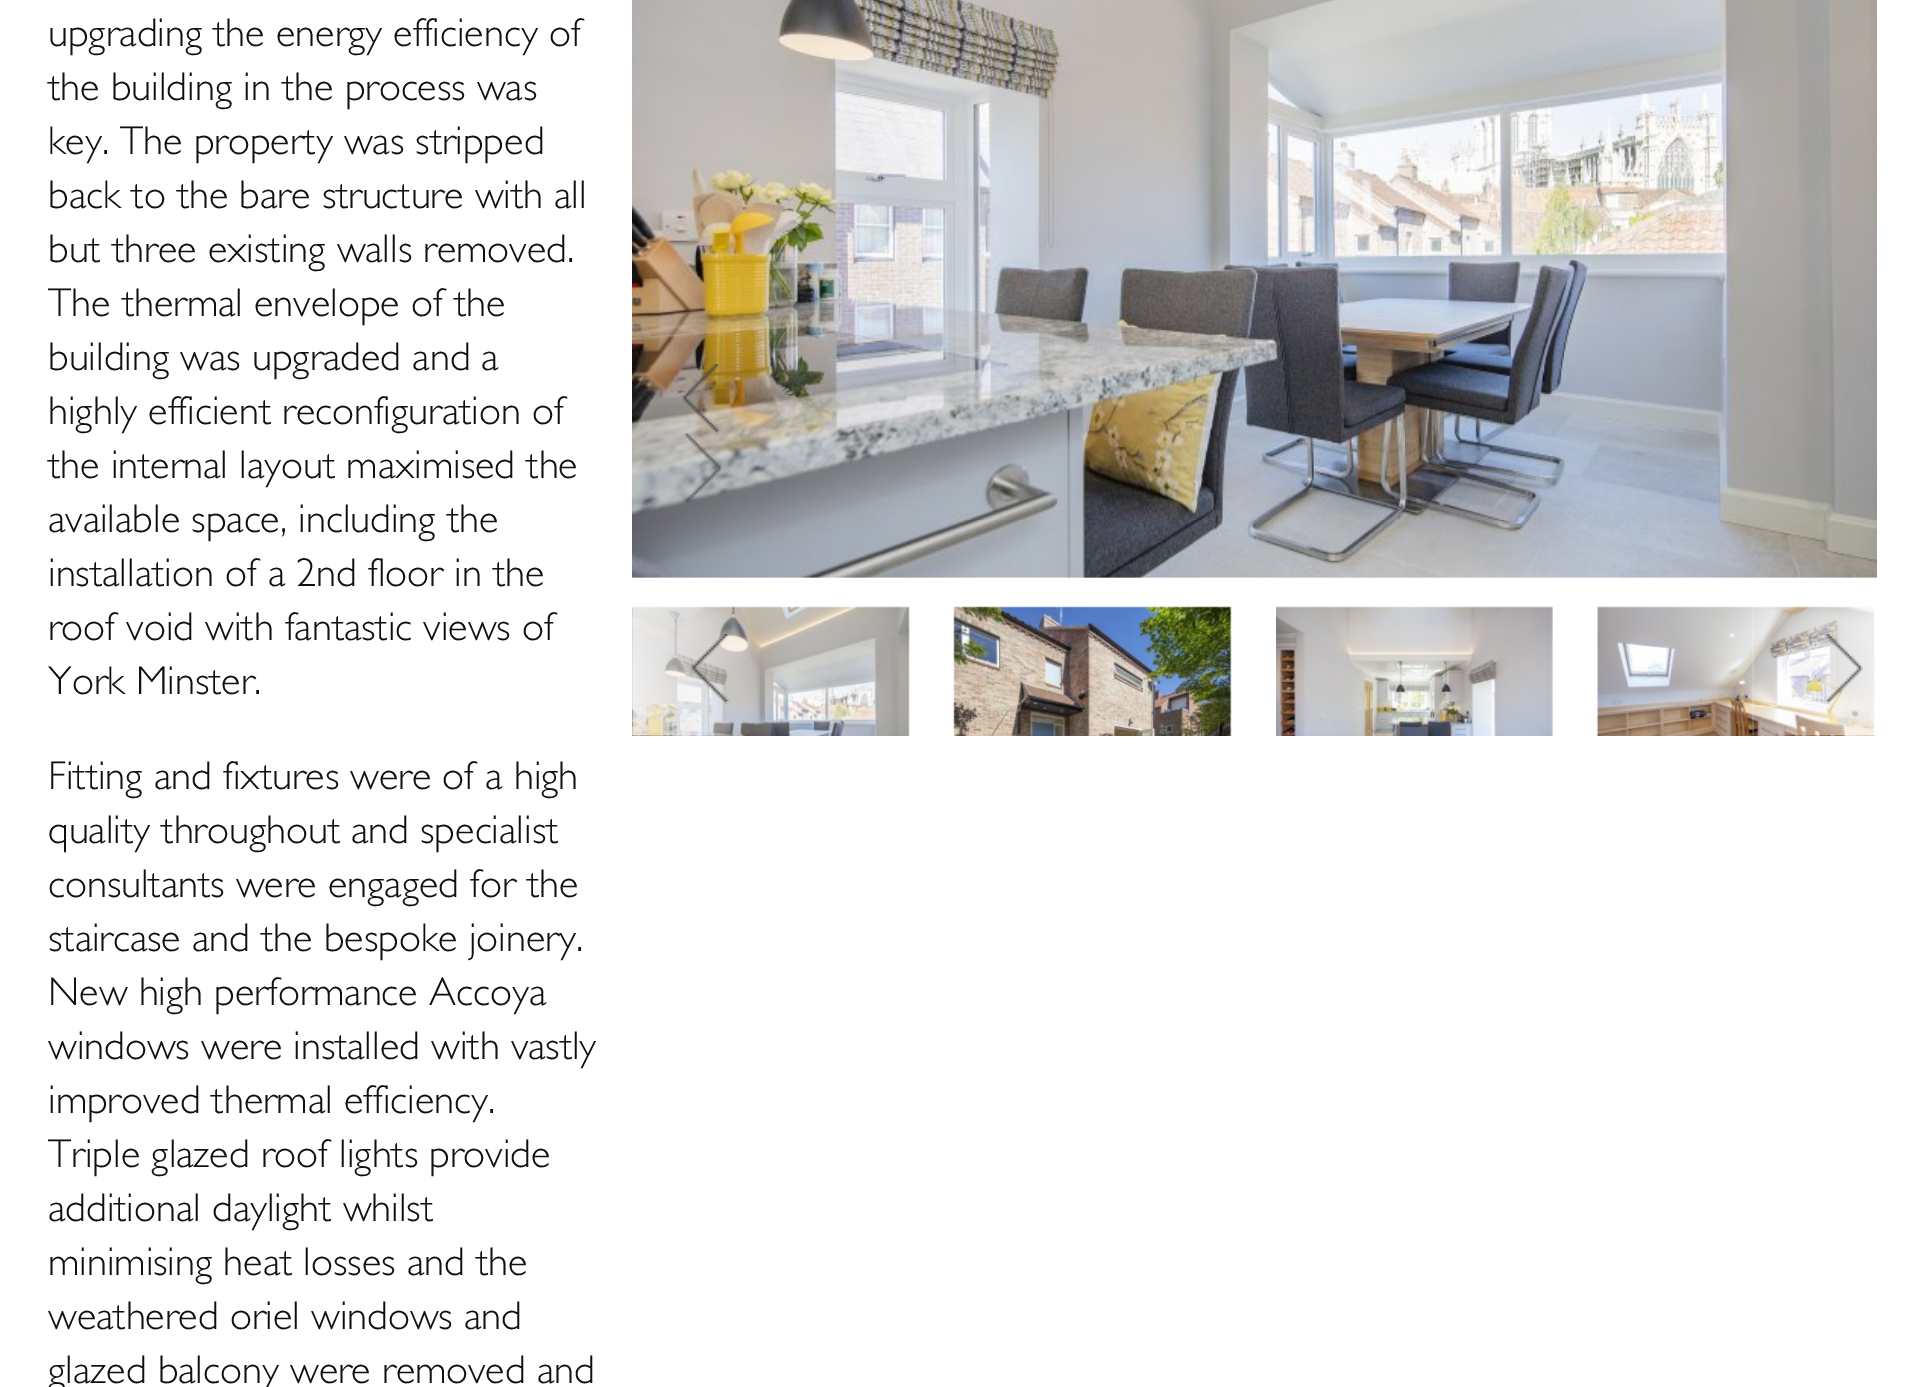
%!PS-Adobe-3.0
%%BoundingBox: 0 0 1922 1387
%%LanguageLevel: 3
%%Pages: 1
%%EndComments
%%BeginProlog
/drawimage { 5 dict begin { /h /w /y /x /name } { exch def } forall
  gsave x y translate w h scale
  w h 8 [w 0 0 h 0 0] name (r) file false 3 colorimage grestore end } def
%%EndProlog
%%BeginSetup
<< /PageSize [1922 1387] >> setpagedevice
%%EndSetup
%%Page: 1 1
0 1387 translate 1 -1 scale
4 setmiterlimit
1 setgray
0 0 1922 1387 rectfill
(images/1.raw) 632 0 1245 578 drawimage
(images/2.raw) 681 364 40 70 drawimage
(images/3.raw) 683 433 40 70 drawimage
(images/4.raw) 632 606 278 130 drawimage
(images/5.raw) 953 606 279 130 drawimage
(images/6.raw) 1276 606 277 130 drawimage
(images/7.raw) 1596 606 279 130 drawimage
(images/8.raw) 632 606 119 130 drawimage
(images/9.raw) 1752 606 123 130 drawimage
(images/10.raw) 690 634 40 70 drawimage
(images/11.raw) 1824 634 39 70 drawimage
/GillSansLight-Light [40.5 0 0 -40.5 0 0] selectfont
0.063 setgray
48 46 moveto (upgrading the energy efficiency of) show
48 100 moveto (the building in the process was) show
48 154 moveto (key. The property was stripped) show
48 208 moveto (back to the bare structure with all) show
48 262 moveto (but three existing walls removed.) show
48 316 moveto (The thermal envelope of the) show
48 370 moveto (building was upgraded and a) show
48 424 moveto (highly efficient reconfiguration of) show
48 478 moveto (the internal layout maximised the) show
48 532 moveto (available space, including the) show
48 586 moveto (installation of a 2nd floor in the) show
48 640 moveto (roof void with fantastic views of) show
48 694 moveto (York Minster.) show
48 789 moveto (Fitting and fixtures were of a high) show
48 843 moveto (quality throughout and specialist) show
48 897 moveto (consultants were engaged for the) show
48 951 moveto (staircase and the bespoke joinery.) show
48 1005 moveto (New high performance Accoya) show
48 1059 moveto (windows were installed with vastly) show
48 1113 moveto (improved thermal efficiency.) show
48 1167 moveto (Triple glazed roof lights provide) show
48 1221 moveto (additional daylight whilst) show
48 1275 moveto (minimising heat losses and the) show
48 1329 moveto (weathered oriel windows and) show
48 1383 moveto (glazed balcony were removed and) show
showpage
%%EOF
